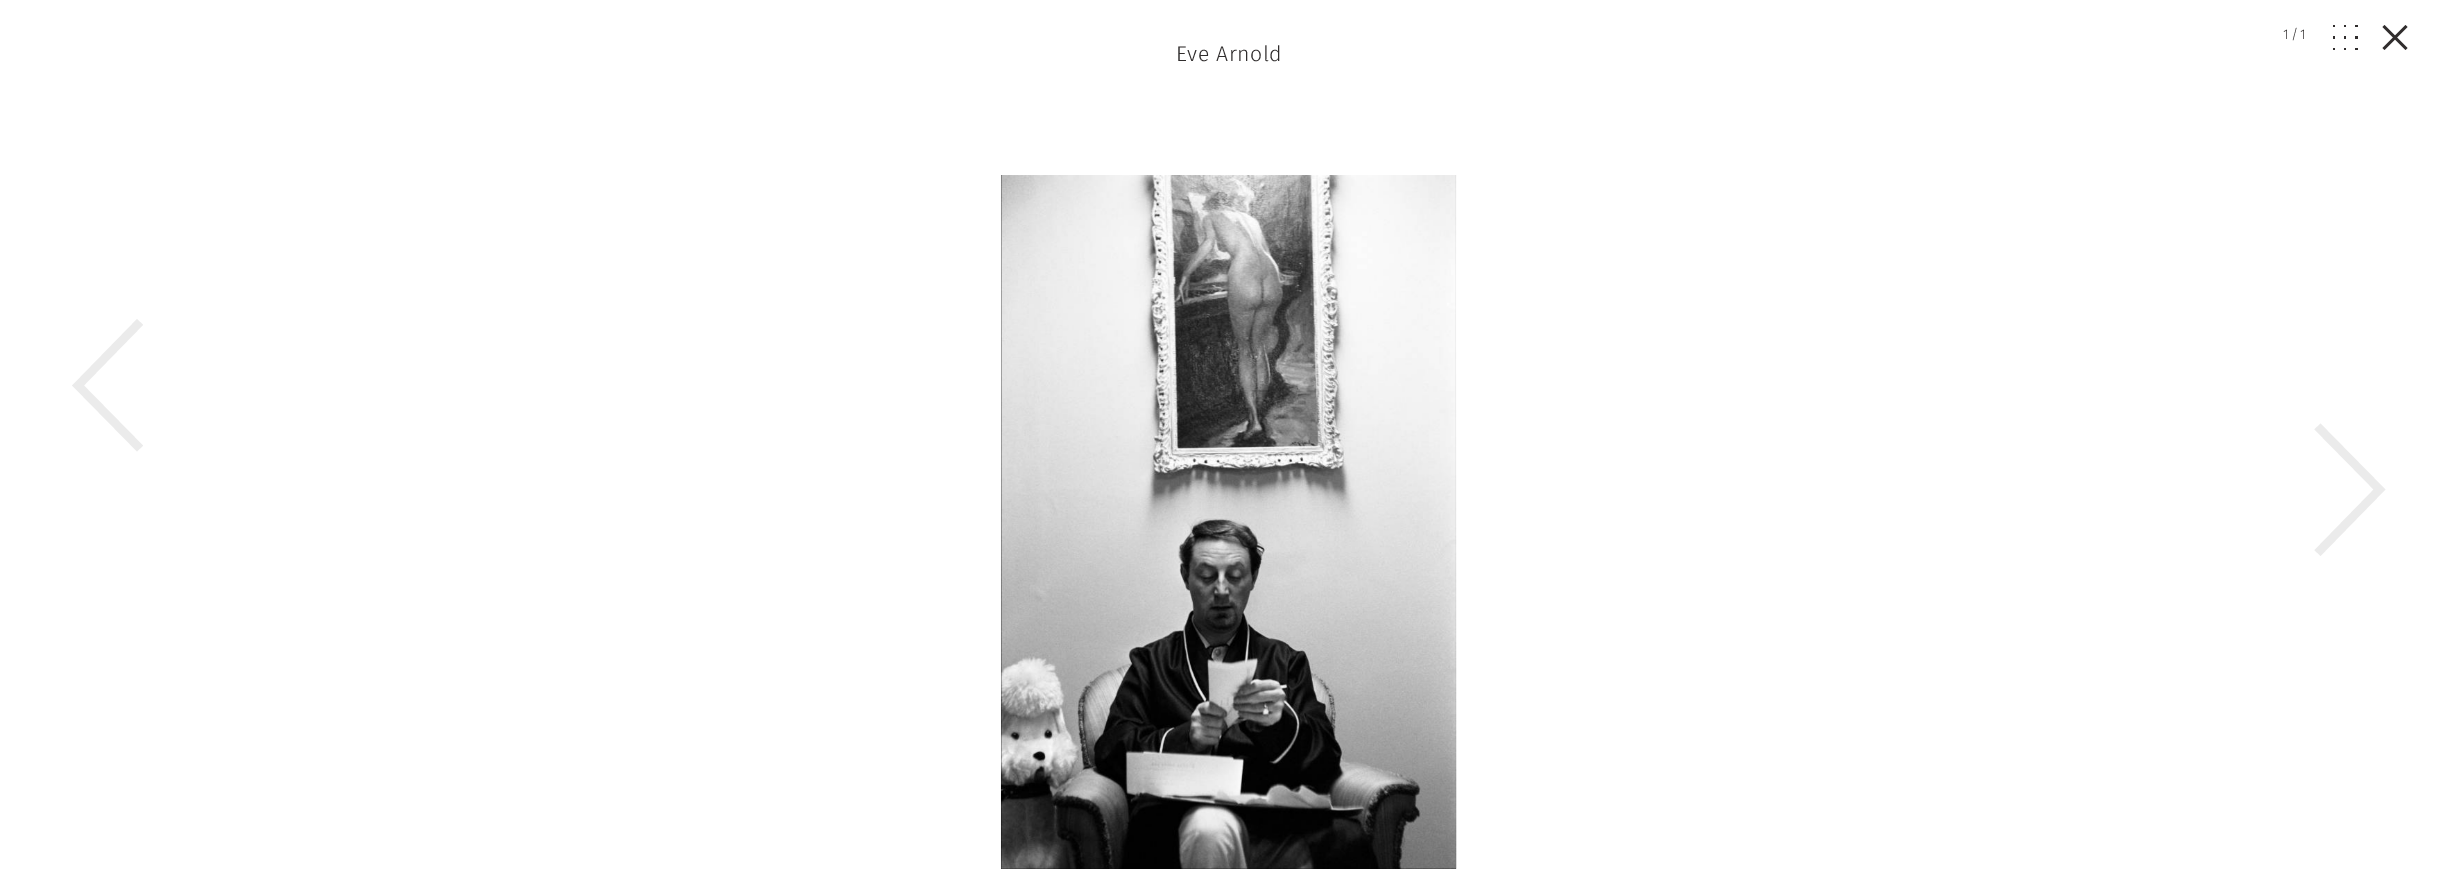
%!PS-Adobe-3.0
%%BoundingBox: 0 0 2457 874
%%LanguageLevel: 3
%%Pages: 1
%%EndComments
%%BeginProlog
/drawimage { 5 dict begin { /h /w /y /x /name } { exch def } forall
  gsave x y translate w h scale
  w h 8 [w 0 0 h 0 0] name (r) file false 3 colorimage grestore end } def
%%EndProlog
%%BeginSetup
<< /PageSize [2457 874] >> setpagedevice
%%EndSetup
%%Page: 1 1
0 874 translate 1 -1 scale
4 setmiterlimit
1 setgray
0 0 2457 874 rectfill
(images/1.raw) 2333 25 25 25 drawimage
0.188 0.176 0.176 setrgbcolor
newpath 2384.5 25 moveto 2407.5 48 lineto 2405.5 50 lineto 2382.5 27 lineto closepath fill
newpath 2382.5 48 moveto 2405.5 25 lineto 2407.5 27 lineto 2384.5 50 lineto closepath fill
0.922 setgray
8.3 setlinewidth
newpath 140 322 moveto 78 385.5 lineto 140 448.5 lineto stroke
0 setgray
1001 175 455 694 rectfill
(images/2.raw) 1000 175 457 694 drawimage
0.922 setgray
newpath 2317.5 553 moveto 2379.5 489.5 lineto 2317.5 426.5 lineto stroke
/FiraSans-Light [14 0 0 -14 0 0] selectfont
0.188 0.176 0.176 setrgbcolor
2283 39 moveto 2 0 (1/1) ashow
/FiraSans-Light [21.25 0 0 -21.25 0 0] selectfont
1176 61 moveto 0.5 0 (Eve Arnold) ashow
showpage
%%EOF
